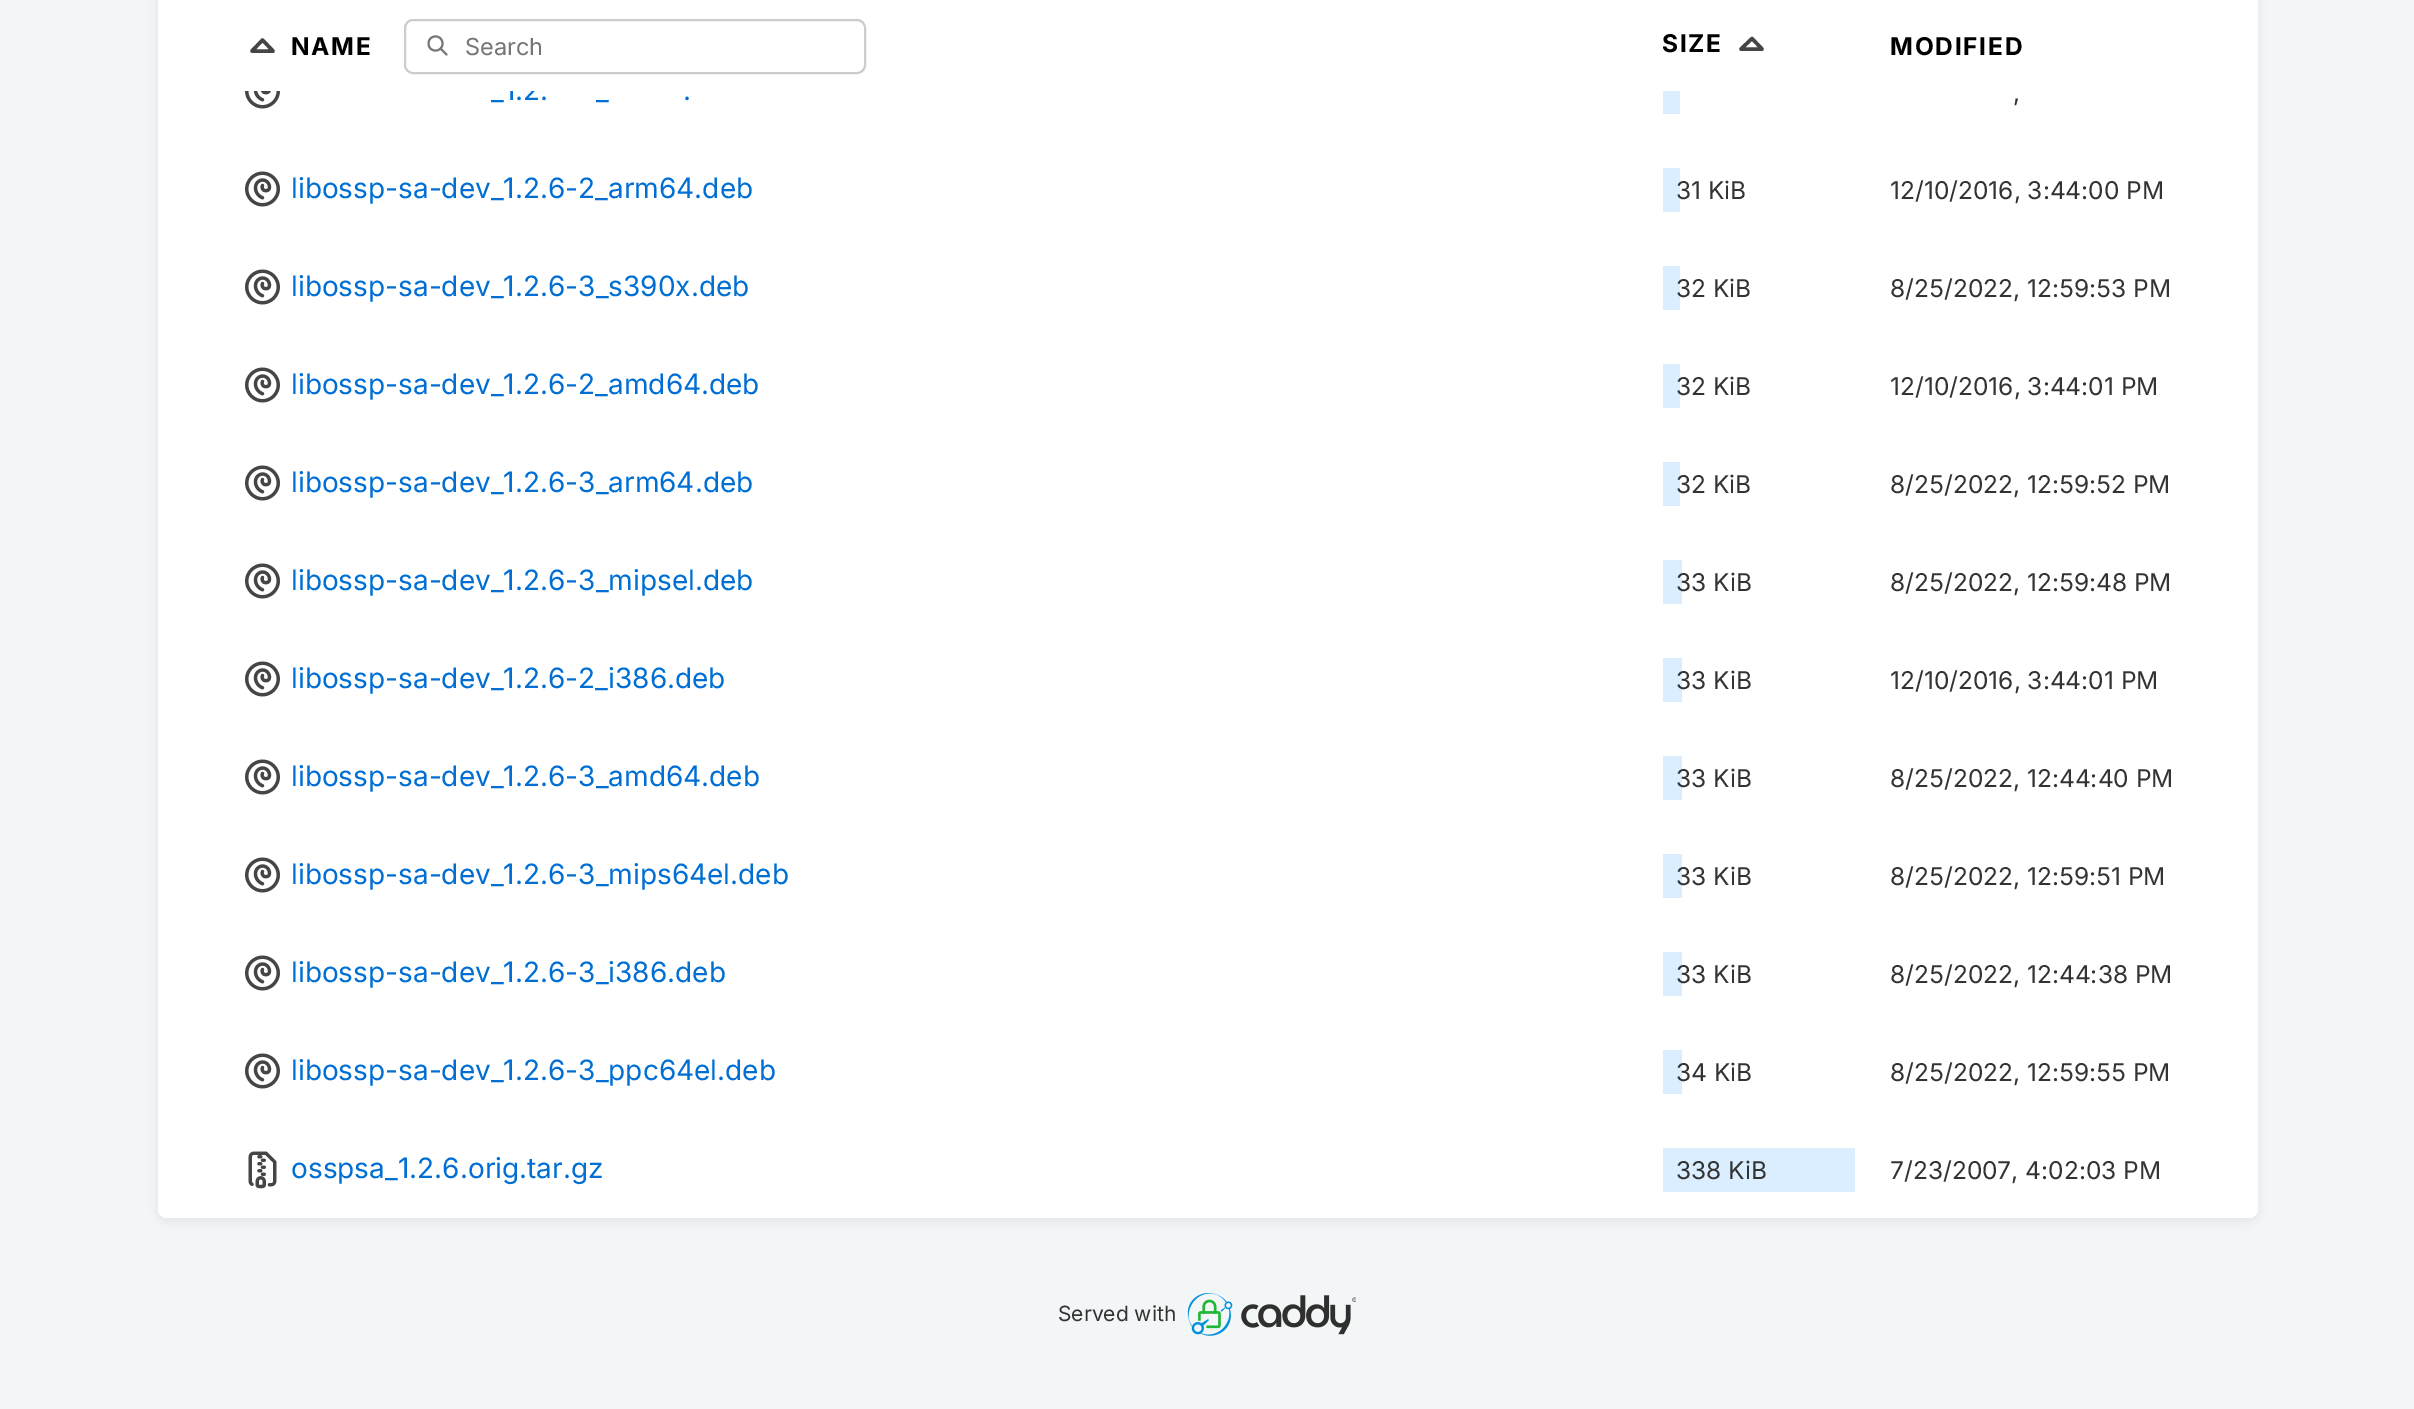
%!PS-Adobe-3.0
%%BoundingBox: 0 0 2414 1409
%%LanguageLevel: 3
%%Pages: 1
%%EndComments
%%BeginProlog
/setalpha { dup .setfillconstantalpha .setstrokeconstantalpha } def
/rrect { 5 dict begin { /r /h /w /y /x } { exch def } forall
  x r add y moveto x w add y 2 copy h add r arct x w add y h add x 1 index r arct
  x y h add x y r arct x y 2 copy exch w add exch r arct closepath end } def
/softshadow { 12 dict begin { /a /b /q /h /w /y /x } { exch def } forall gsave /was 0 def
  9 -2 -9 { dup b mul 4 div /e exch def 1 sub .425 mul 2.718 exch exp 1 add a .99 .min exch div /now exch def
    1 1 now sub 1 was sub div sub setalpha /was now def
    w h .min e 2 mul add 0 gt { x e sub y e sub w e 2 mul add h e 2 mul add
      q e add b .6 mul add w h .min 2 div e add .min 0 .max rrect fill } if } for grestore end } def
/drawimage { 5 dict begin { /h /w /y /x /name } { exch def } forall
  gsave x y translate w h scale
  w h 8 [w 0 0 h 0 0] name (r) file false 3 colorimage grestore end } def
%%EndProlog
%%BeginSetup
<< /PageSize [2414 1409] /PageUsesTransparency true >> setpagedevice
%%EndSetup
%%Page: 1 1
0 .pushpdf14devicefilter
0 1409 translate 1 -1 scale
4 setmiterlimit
0.953 0.965 0.969 setrgbcolor
0 0 2414 1409 rectfill
0 setgray
156 -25 2103 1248 11 4.5 0.05 softshadow
1 setgray
158 -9 2100 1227 9 rrect fill
0.271 setgray
3.5 setlinewidth
1 setlinecap
1 setlinejoin
newpath 273 51 moveto 262.5 40 lineto 252 51 lineto 273 51 lineto stroke
0.467 setgray
2 setlinewidth
newpath 428.5 43.5 moveto 428.5 53 442.5 53 442.5 43.5 curveto 442.5 34 428.5 34 428.5 43.5 curveto 446.5 54.5 moveto 440.5 48.5 lineto stroke
0.8 setgray
0 setlinecap
0 setlinejoin
405 20 460 53 8 rrect stroke
0.271 setgray
3.5 setlinewidth
1 setlinecap
1 setlinejoin
newpath 1762 49 moveto 1752 38.5 lineto 1741 49 lineto 1762 49 lineto stroke
(images/1.raw) 245 91 35 18 drawimage
0.859 0.933 1 setrgbcolor
1663 91 17 23 rectfill
(images/2.raw) 245 171 35 36 drawimage
1663 168 17 44 rectfill
(images/2.raw) 245 269 35 36 drawimage
1663 266 17 44 rectfill
(images/2.raw) 245 367 35 36 drawimage
1663 364 17 44 rectfill
(images/2.raw) 245 465 35 36 drawimage
1663 462 17 44 rectfill
(images/2.raw) 245 563 35 36 drawimage
1663 560 19 44 rectfill
(images/2.raw) 245 661 35 36 drawimage
1663 658 19 44 rectfill
(images/2.raw) 245 759 35 36 drawimage
1663 756 19 44 rectfill
(images/2.raw) 245 857 35 36 drawimage
1663 854 19 44 rectfill
(images/2.raw) 245 955 35 36 drawimage
1663 952 19 44 rectfill
(images/2.raw) 245 1053 35 36 drawimage
1663 1050 19 44 rectfill
(images/3.raw) 248 1151 29 38 drawimage
1663 1148 192 44 rectfill
(images/4.raw) 1187 1292 169 44 drawimage
/Inter-Bold [24.5 0 0 -24.5 0 0] selectfont
0 setgray
291 55 moveto 1.75 0 (NAME) ashow
/Inter-Regular [23.5 0 0 -23.5 0 0] selectfont
0.459 setgray
465 55 moveto (Search) show
/Inter-Bold [24.5 0 0 -24.5 0 0] selectfont
0 setgray
1662 52 moveto 1.75 0 (SIZE) ashow
1890 55 moveto 1.75 0 (MODIFIED) ashow
/Inter-Regular [28 0 0 -28 0 0] selectfont
0 0.431 0.827 setrgbcolor
491 100 moveto (_1.2.) show
1 setgray
505 79 34 12 rectfill
0 0.431 0.827 setrgbcolor
683 100 moveto (.) show
596 100 moveto (_) show
/Inter-Regular [24.5 0 0 -24.5 0 0] selectfont
0.2 setgray
2013 101 moveto (,) show
/Inter-Regular [28 0 0 -28 0 0] selectfont
0 0.431 0.827 setrgbcolor
291 198 moveto (libossp-sa-dev_1.2.6-2_arm64.deb) show
/Inter-Regular [24.5 0 0 -24.5 0 0] selectfont
0.2 setgray
1676 199 moveto (31 KiB) show
1890 199 moveto (12/10/2016, 3:44:00 PM) show
/Inter-Regular [28 0 0 -28 0 0] selectfont
0 0.431 0.827 setrgbcolor
291 296 moveto (libossp-sa-dev_1.2.6-3_s390x.deb) show
/Inter-Regular [24.5 0 0 -24.5 0 0] selectfont
0.2 setgray
1676 297 moveto (32 KiB) show
1890 297 moveto (8/25/2022, 12:59:53 PM) show
/Inter-Regular [28 0 0 -28 0 0] selectfont
0 0.431 0.827 setrgbcolor
291 394 moveto (libossp-sa-dev_1.2.6-2_amd64.deb) show
/Inter-Regular [24.5 0 0 -24.5 0 0] selectfont
0.2 setgray
1676 395 moveto (32 KiB) show
1890 395 moveto (12/10/2016, 3:44:01 PM) show
/Inter-Regular [28 0 0 -28 0 0] selectfont
0 0.431 0.827 setrgbcolor
291 492 moveto (libossp-sa-dev_1.2.6-3_arm64.deb) show
/Inter-Regular [24.5 0 0 -24.5 0 0] selectfont
0.2 setgray
1676 493 moveto (32 KiB) show
1890 493 moveto (8/25/2022, 12:59:52 PM) show
/Inter-Regular [28 0 0 -28 0 0] selectfont
0 0.431 0.827 setrgbcolor
291 590 moveto (libossp-sa-dev_1.2.6-3_mipsel.deb) show
/Inter-Regular [24.5 0 0 -24.5 0 0] selectfont
0.2 setgray
1676 591 moveto (33 KiB) show
1890 591 moveto (8/25/2022, 12:59:48 PM) show
/Inter-Regular [28 0 0 -28 0 0] selectfont
0 0.431 0.827 setrgbcolor
291 688 moveto (libossp-sa-dev_1.2.6-2_i386.deb) show
/Inter-Regular [24.5 0 0 -24.5 0 0] selectfont
0.2 setgray
1676 689 moveto (33 KiB) show
1890 689 moveto (12/10/2016, 3:44:01 PM) show
/Inter-Regular [28 0 0 -28 0 0] selectfont
0 0.431 0.827 setrgbcolor
291 786 moveto (libossp-sa-dev_1.2.6-3_amd64.deb) show
/Inter-Regular [24.5 0 0 -24.5 0 0] selectfont
0.2 setgray
1676 787 moveto (33 KiB) show
1890 787 moveto (8/25/2022, 12:44:40 PM) show
/Inter-Regular [28 0 0 -28 0 0] selectfont
0 0.431 0.827 setrgbcolor
291 884 moveto (libossp-sa-dev_1.2.6-3_mips64el.deb) show
/Inter-Regular [24.5 0 0 -24.5 0 0] selectfont
0.2 setgray
1676 885 moveto (33 KiB) show
1890 885 moveto (8/25/2022, 12:59:51 PM) show
/Inter-Regular [28 0 0 -28 0 0] selectfont
0 0.431 0.827 setrgbcolor
291 982 moveto (libossp-sa-dev_1.2.6-3_i386.deb) show
/Inter-Regular [24.5 0 0 -24.5 0 0] selectfont
0.2 setgray
1676 983 moveto (33 KiB) show
1890 983 moveto (8/25/2022, 12:44:38 PM) show
/Inter-Regular [28 0 0 -28 0 0] selectfont
0 0.431 0.827 setrgbcolor
291 1080 moveto (libossp-sa-dev_1.2.6-3_ppc64el.deb) show
/Inter-Regular [24.5 0 0 -24.5 0 0] selectfont
0.2 setgray
1676 1081 moveto (34 KiB) show
1890 1081 moveto (8/25/2022, 12:59:55 PM) show
/Inter-Regular [28 0 0 -28 0 0] selectfont
0 0.431 0.827 setrgbcolor
291 1178 moveto (osspsa_1.2.6.orig.tar.gz) show
/Inter-Regular [24.5 0 0 -24.5 0 0] selectfont
0.2 setgray
1676 1179 moveto (338 KiB) show
1890 1179 moveto (7/23/2007, 4:02:03 PM) show
/Inter-Regular [21 0 0 -21 0 0] selectfont
1058 1321 moveto (Served with) show
.poppdf14devicefilter showpage
%%EOF
